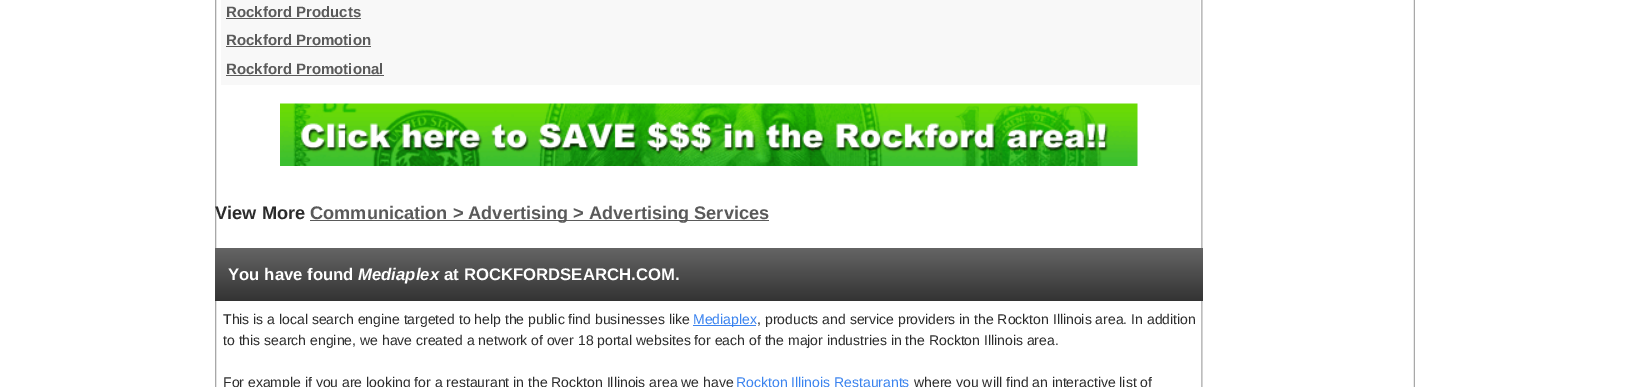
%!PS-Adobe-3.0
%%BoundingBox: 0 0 1629 387
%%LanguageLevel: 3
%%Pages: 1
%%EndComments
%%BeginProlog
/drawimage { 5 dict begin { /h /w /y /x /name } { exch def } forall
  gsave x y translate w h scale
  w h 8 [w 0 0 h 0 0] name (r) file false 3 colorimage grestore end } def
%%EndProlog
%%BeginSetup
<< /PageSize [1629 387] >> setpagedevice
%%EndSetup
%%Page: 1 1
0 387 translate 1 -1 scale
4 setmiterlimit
1 setgray
0 0 1629 387 rectfill
(images/1.raw) 215 0 1200 387 drawimage
(images/2.raw) 1201 0 2 387 drawimage
0.973 setgray
221 0 979 85 rectfill
0.353 setgray
226 18 135 1 rectfill
226 46 145 1 rectfill
226 75 158 1 rectfill
(images/3.raw) 280 103 858 63 drawimage
310 220 459 1 rectfill
gsave newpath 215 248 moveto 1203 248 lineto 1203 301 lineto 215 301 lineto closepath clip newpath
<< /ShadingType 2 /ColorSpace /DeviceRGB /Coords [709 247 709 301] /Extend [true true] /Function << /FunctionType 2 /Domain [0 1] /C0 [0.4 0.4 0.4] /C1 [0.2 0.2 0.2] /N 1 >> >> shfill grestore
0.227 0.514 0.937 setrgbcolor
693 325 63 1 rectfill
/LiberationSans-Bold [15 0 0 -15 0 0] selectfont
0.353 setgray
226 17 moveto (Rockford Products) show
226 45 moveto (Rockford Promotion) show
226 74 moveto (Rockford Promotional) show
/LiberationSans-Bold [18.2 0 0 -18.2 0 0] selectfont
0.169 setgray
215 219 moveto (View More) show
0.353 setgray
310 219 moveto (Communication > Advertising > Advertising Services) show
/LiberationSans-Bold [16.75 0 0 -16.75 0 0] selectfont
1 setgray
228 280 moveto (You have found) show
/LiberationSans-BoldItalic [16.75 0 0 -16.75 0 0] selectfont
358 280 moveto (Mediaplex) show
/LiberationSans-Bold [16.75 0 0 -16.75 0 0] selectfont
444 280 moveto (at ROCKFORDSEARCH.COM.) show
/LiberationSans-Regular [14 0 0 -14 0 0] selectfont
0.169 setgray
223 324 moveto (This is a local search engine targeted to help the public find businesses like) show
0.227 0.514 0.937 setrgbcolor
693 324 moveto (Mediaplex) show
0.169 setgray
757 324 moveto (, products and service providers in the Rockton Illinois area. In addition) show
223 345 moveto (to this search engine, we have created a network of over 18 portal websites for each of the major industries in the Rockton Illinois area.) show
223 387 moveto (For example if you are looking for a restaurant in the Rockton Illinois area we have) show
0.227 0.514 0.937 setrgbcolor
736 387 moveto (Rockton Illinois Restaurants) show
0.169 setgray
914 387 moveto (where you will find an interactive list of) show
showpage
%%EOF
